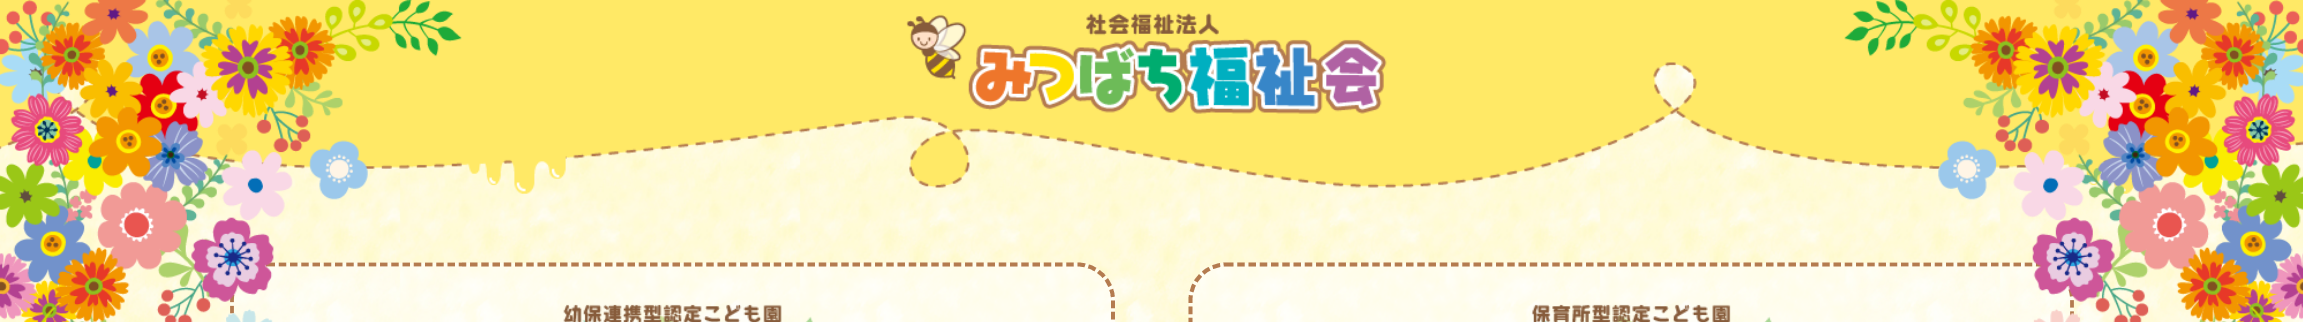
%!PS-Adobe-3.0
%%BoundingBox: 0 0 2303 322
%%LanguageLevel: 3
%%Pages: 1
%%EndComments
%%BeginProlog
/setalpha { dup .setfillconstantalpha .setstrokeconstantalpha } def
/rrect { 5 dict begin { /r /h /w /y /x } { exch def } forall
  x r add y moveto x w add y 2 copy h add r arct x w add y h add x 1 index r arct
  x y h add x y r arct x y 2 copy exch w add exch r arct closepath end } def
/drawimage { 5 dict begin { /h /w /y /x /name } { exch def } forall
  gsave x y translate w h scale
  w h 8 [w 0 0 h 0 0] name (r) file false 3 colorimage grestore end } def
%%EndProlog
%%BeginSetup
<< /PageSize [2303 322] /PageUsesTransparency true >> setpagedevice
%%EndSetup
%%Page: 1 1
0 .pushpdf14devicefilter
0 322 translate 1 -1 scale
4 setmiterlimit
1 setgray
0 0 2303 322 rectfill
(images/1.raw) 0 63 2303 259 drawimage
(images/2.raw) 0 0 2303 194 drawimage
0.5 setalpha
230 263 885 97 38 rrect fill
1 setalpha
0.706 0.482 0.31 setrgbcolor
3.8 setlinewidth
[7.5 3.75] 0 setdash
newpath 267.5 264.5 moveto 1077.5 264.5 lineto 1097 264.5 1113 280.5 1113 300 curveto 1113 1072.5 lineto 1113 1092 1097 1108 1077.5 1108 curveto 267.5 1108 lineto 248 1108 232 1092 232 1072.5 curveto 232 300 lineto 232 280.5 248 264.5 267.5 264.5 curveto closepath stroke
(images/3.raw) 0 0 462 322 drawimage
(images/4.raw) 906 13 481 101 drawimage
0.5 setalpha
1 setgray
1189 263 885 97 38 rrect fill
1 setalpha
0.706 0.482 0.31 setrgbcolor
newpath 1226 264.5 moveto 2036 264.5 lineto 2056 264.5 2072 280.5 2072 300 curveto 2072 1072.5 lineto 2072 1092 2056 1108 2036 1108 curveto 1226 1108 lineto 1206.5 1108 1190.5 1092 1190.5 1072.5 curveto 1190.5 300 lineto 1190.5 280.5 1206.5 264.5 1226 264.5 curveto closepath stroke
(images/5.raw) 1844 0 459 322 drawimage
(images/6.raw) 582 315 231 7 drawimage
(images/7.raw) 563 304 219 18 drawimage
(images/8.raw) 1541 315 231 7 drawimage
(images/9.raw) 1531 304 200 18 drawimage
.poppdf14devicefilter showpage
%%EOF
